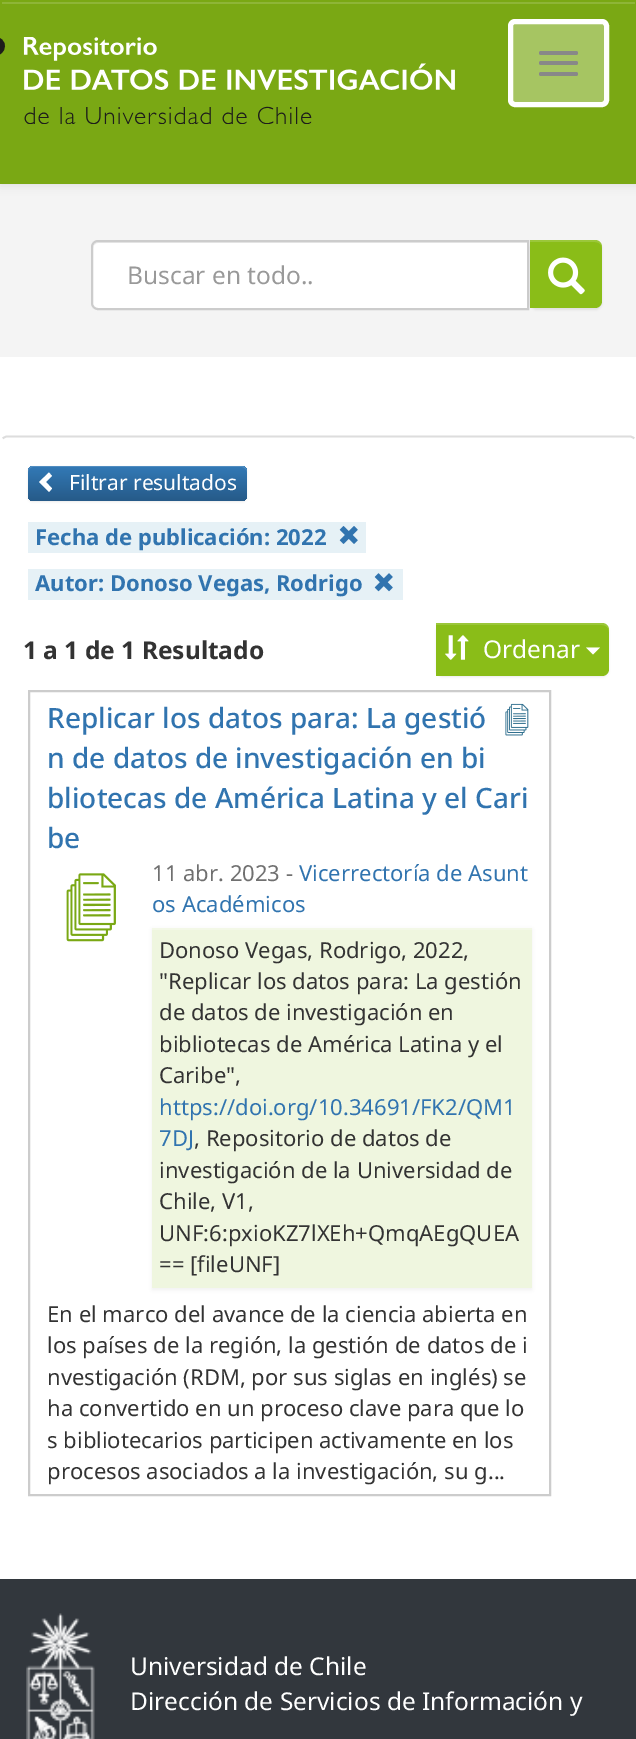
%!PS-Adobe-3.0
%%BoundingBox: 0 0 636 1739
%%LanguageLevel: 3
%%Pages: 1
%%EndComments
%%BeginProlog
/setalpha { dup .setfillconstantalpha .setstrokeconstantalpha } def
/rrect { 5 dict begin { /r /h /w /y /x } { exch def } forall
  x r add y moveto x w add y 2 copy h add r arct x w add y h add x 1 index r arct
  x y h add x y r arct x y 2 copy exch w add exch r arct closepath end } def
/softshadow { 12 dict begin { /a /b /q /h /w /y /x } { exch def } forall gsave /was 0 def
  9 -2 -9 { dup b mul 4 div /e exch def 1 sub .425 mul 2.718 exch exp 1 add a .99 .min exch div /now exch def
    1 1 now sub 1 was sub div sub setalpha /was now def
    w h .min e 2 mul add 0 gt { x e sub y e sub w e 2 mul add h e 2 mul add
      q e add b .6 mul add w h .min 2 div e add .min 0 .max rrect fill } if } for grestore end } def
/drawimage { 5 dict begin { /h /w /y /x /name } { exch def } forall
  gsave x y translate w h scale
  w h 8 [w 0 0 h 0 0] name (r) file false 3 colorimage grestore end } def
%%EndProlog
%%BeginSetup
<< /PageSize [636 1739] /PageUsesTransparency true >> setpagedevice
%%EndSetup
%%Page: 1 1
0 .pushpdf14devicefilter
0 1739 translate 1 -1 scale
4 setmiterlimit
1 setgray
0 0 636 1739 rectfill
0.957 setgray
0 184 636 173 rectfill
0 setgray
0 2 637 184 0 4.5 0.07 softshadow
0.478 0.659 0.078 setrgbcolor
0 0 636 184 rectfill
0.557 0.71 0.216 setrgbcolor
2 2 633 2 rectfill
(images/1.raw) 0 37 455 87 drawimage
0.651 0.773 0.384 setrgbcolor
510.5 21.5 96 83 4.5 rrect gsave fill grestore
1 setgray
5 setlinewidth
stroke
0.533 setgray
539 51 39 4 2 rrect fill
539 61 39 4 2 rrect fill
539 72 39 4 2 rrect fill
1 setgray
newpath 98 240 moveto 529 240 lineto 529 310 lineto 98 310 lineto 94 310 91 307 91 303 curveto 91 247 lineto 91 243 94 240 98 240 curveto closepath fill
0.925 setgray
newpath 98 243 moveto 527 243 lineto 527 242 lineto 98 242 lineto 95 242 93 245 93 248 curveto 93 246 95 243 98 243 curveto closepath fill
0.8 setgray
2 setlinewidth
newpath 98 241 moveto 528 241 lineto 528 309 lineto 98 309 lineto 94.5 309 92 306.5 92 303 curveto 92 247 lineto 92 243.5 94.5 241 98 241 curveto closepath stroke
0 setgray
530 242 72 68 7 1 0.07 softshadow
0.541 0.741 0.094 setrgbcolor
newpath 530 240 moveto 595 240 lineto 599 240 602 243 602 247 curveto 602 301 lineto 602 305 599 308 595 308 curveto 530 308 lineto closepath fill
0.15 setalpha
1 setgray
newpath 530 242 moveto 595 242 lineto 599 242 602 245 602 248 curveto 602 247 lineto 602 243 599 240 595 240 curveto 530 240 lineto closepath fill
1 setalpha
(images/2.raw) 548 257 37 38 drawimage
0.867 setgray
1.8 setlinewidth
newpath 2.5 438.5 moveto 4 437.5 5.5 436.5 7 436.5 curveto 630 436.5 lineto 631.5 436.5 633 437.5 634.5 438.5 curveto stroke
1 setgray
newpath 634.5 438.5 moveto 635.5 439.5 636 441 636 443 curveto 636 1528 lineto 636 1529.5 635.5 1531 634.5 1532 curveto 633 1533 631.5 1534 630 1534 curveto 7 1534 lineto 5.5 1534 4 1533 2.5 1532 curveto 1.5 1531 1 1529.5 1 1528 curveto 1 443 lineto 1 441 1.5 439.5 2.5 438.5 curveto stroke
0 setgray
28 467 219 35 5 1 0.07 softshadow
gsave 28 466 219 35 5 rrect clip newpath
<< /ShadingType 2 /ColorSpace /DeviceRGB /Coords [137 466 137 501] /Extend [true true] /Function << /FunctionType 2 /Domain [0 1] /C0 [0.2 0.478 0.718] /C1 [0.149 0.353 0.533] /N 1 >> >> shfill grestore
0.15 setalpha
1 setgray
newpath 33 467 moveto 242 467 lineto 244 467 247 470 247 472 curveto 247 469 245 466 242 466 curveto 32 466 lineto 29 467 28 469 28 472 curveto 28 470 30 467 33 467 curveto closepath fill
1 setalpha
newpath 52 476 moveto 46 482 lineto 52 488.5 lineto 49 492 lineto 39 482 lineto 49 472.5 lineto closepath fill
0.902 0.945 0.965 setrgbcolor
28 522 338 31 rectfill
(images/3.raw) 339 526 19 18 drawimage
28 569 375 31 rectfill
(images/4.raw) 374 573 19 19 drawimage
0 setgray
436 625 173 52 7 1 0.07 softshadow
0.541 0.741 0.094 setrgbcolor
newpath 436 623 moveto 602 623 lineto 606 623 609 626 609 630 curveto 609 669 lineto 609 673 606 676 602 676 curveto 436 676 lineto closepath fill
0.15 setalpha
1 setgray
newpath 436 625 moveto 602 625 lineto 606 625 609 628 609 632 curveto 609 630 lineto 609 626 606 623 602 623 curveto 436 623 lineto closepath fill
1 setalpha
(images/5.raw) 445 635 24 25 drawimage
newpath 586 647.5 moveto 600 647.5 lineto 593 654.5 lineto closepath fill
0.8 setgray
2 setlinewidth
29 691 521 804 rectstroke
(images/6.raw) 505 703 24 33 drawimage
(images/7.raw) 66 873 50 69 drawimage
0 setgray
152 929 380 361 0 2 0.05 softshadow
0.937 0.965 0.875 setrgbcolor
152 930 380 358 rectfill
0.953 0.973 0.906 setrgbcolor
152 928 380 2 rectfill
0.196 0.216 0.239 setrgbcolor
0 1579 636 160 rectfill
(images/8.raw) 26 1613 69 126 drawimage
/NotoSans-Regular [24.5 0 0 -24.5 0 0] selectfont
0.6 setgray
127 284 moveto (Buscar en todo..) show
/NotoSans-Regular [21 0 0 -21 0 0] selectfont
1 setgray
69 490 moveto (Filtrar resultados) show
/NotoSans-Bold [22.05 0 0 -22.05 0 0] selectfont
0.192 0.455 0.686 setrgbcolor
35 545 moveto (Fecha de publicación: 2022) show
35 591 moveto (Autor: Donoso Vegas, Rodrigo) show
/NotoSans-Bold [24.5 0 0 -24.5 0 0] selectfont
0.2 setgray
23 659 moveto (1 a 1 de 1 Resultado) show
/NotoSans-Regular [24.5 0 0 -24.5 0 0] selectfont
1 setgray
483 658 moveto (Ordenar) show
/NotoSans-Medium [28 0 0 -28 0 0] selectfont
0.192 0.455 0.686 setrgbcolor
47 728 moveto (Replicar los datos para: La gestió) show
47 768 moveto (n de datos de investigación en bi) show
47 808 moveto (bliotecas de América Latina y el Cari) show
47 848 moveto (be) show
/NotoSans-Regular [22.05 0 0 -22.05 0 0] selectfont
0.439 setgray
152 881 moveto (11 abr. 2023 -) show
0.192 0.455 0.686 setrgbcolor
299 881 moveto (Vicerrectoría de Asunt) show
152 912 moveto (os Académicos) show
0.2 setgray
159 958 moveto (Donoso Vegas, Rodrigo, 2022,) show
159 989 moveto ("Replicar los datos para: La gestión) show
159 1020 moveto (de datos de investigación en) show
159 1052 moveto (bibliotecas de América Latina y el) show
159 1083 moveto (Caribe",) show
0.192 0.455 0.686 setrgbcolor
159 1115 moveto (https://doi.org/10.34691/FK2/QM1) show
159 1146 moveto (7DJ) show
0.2 setgray
194 1146 moveto (, Repositorio de datos de) show
159 1178 moveto (investigación de la Universidad de) show
159 1209 moveto (Chile, V1,) show
159 1241 moveto (UNF:6:pxioKZ7lXEh+QmqAEgQUEA) show
159 1272 moveto (== [fileUNF]) show
47 1322 moveto (En el marco del avance de la ciencia abierta en) show
47 1353 moveto (los países de la región, la gestión de datos de i) show
47 1385 moveto (nvestigación \(RDM, por sus siglas en inglés\) se) show
47 1416 moveto (ha convertido en un proceso clave para que lo) show
47 1448 moveto (s bibliotecarios participen activamente en los) show
47 1479 moveto (procesos asociados a la investigación, su g...) show
/NotoSans-Regular [24.5 0 0 -24.5 0 0] selectfont
1 setgray
130 1675 moveto (Universidad de Chile) show
130 1710 moveto (Dirección de Servicios de Información y) show
.poppdf14devicefilter showpage
%%EOF
